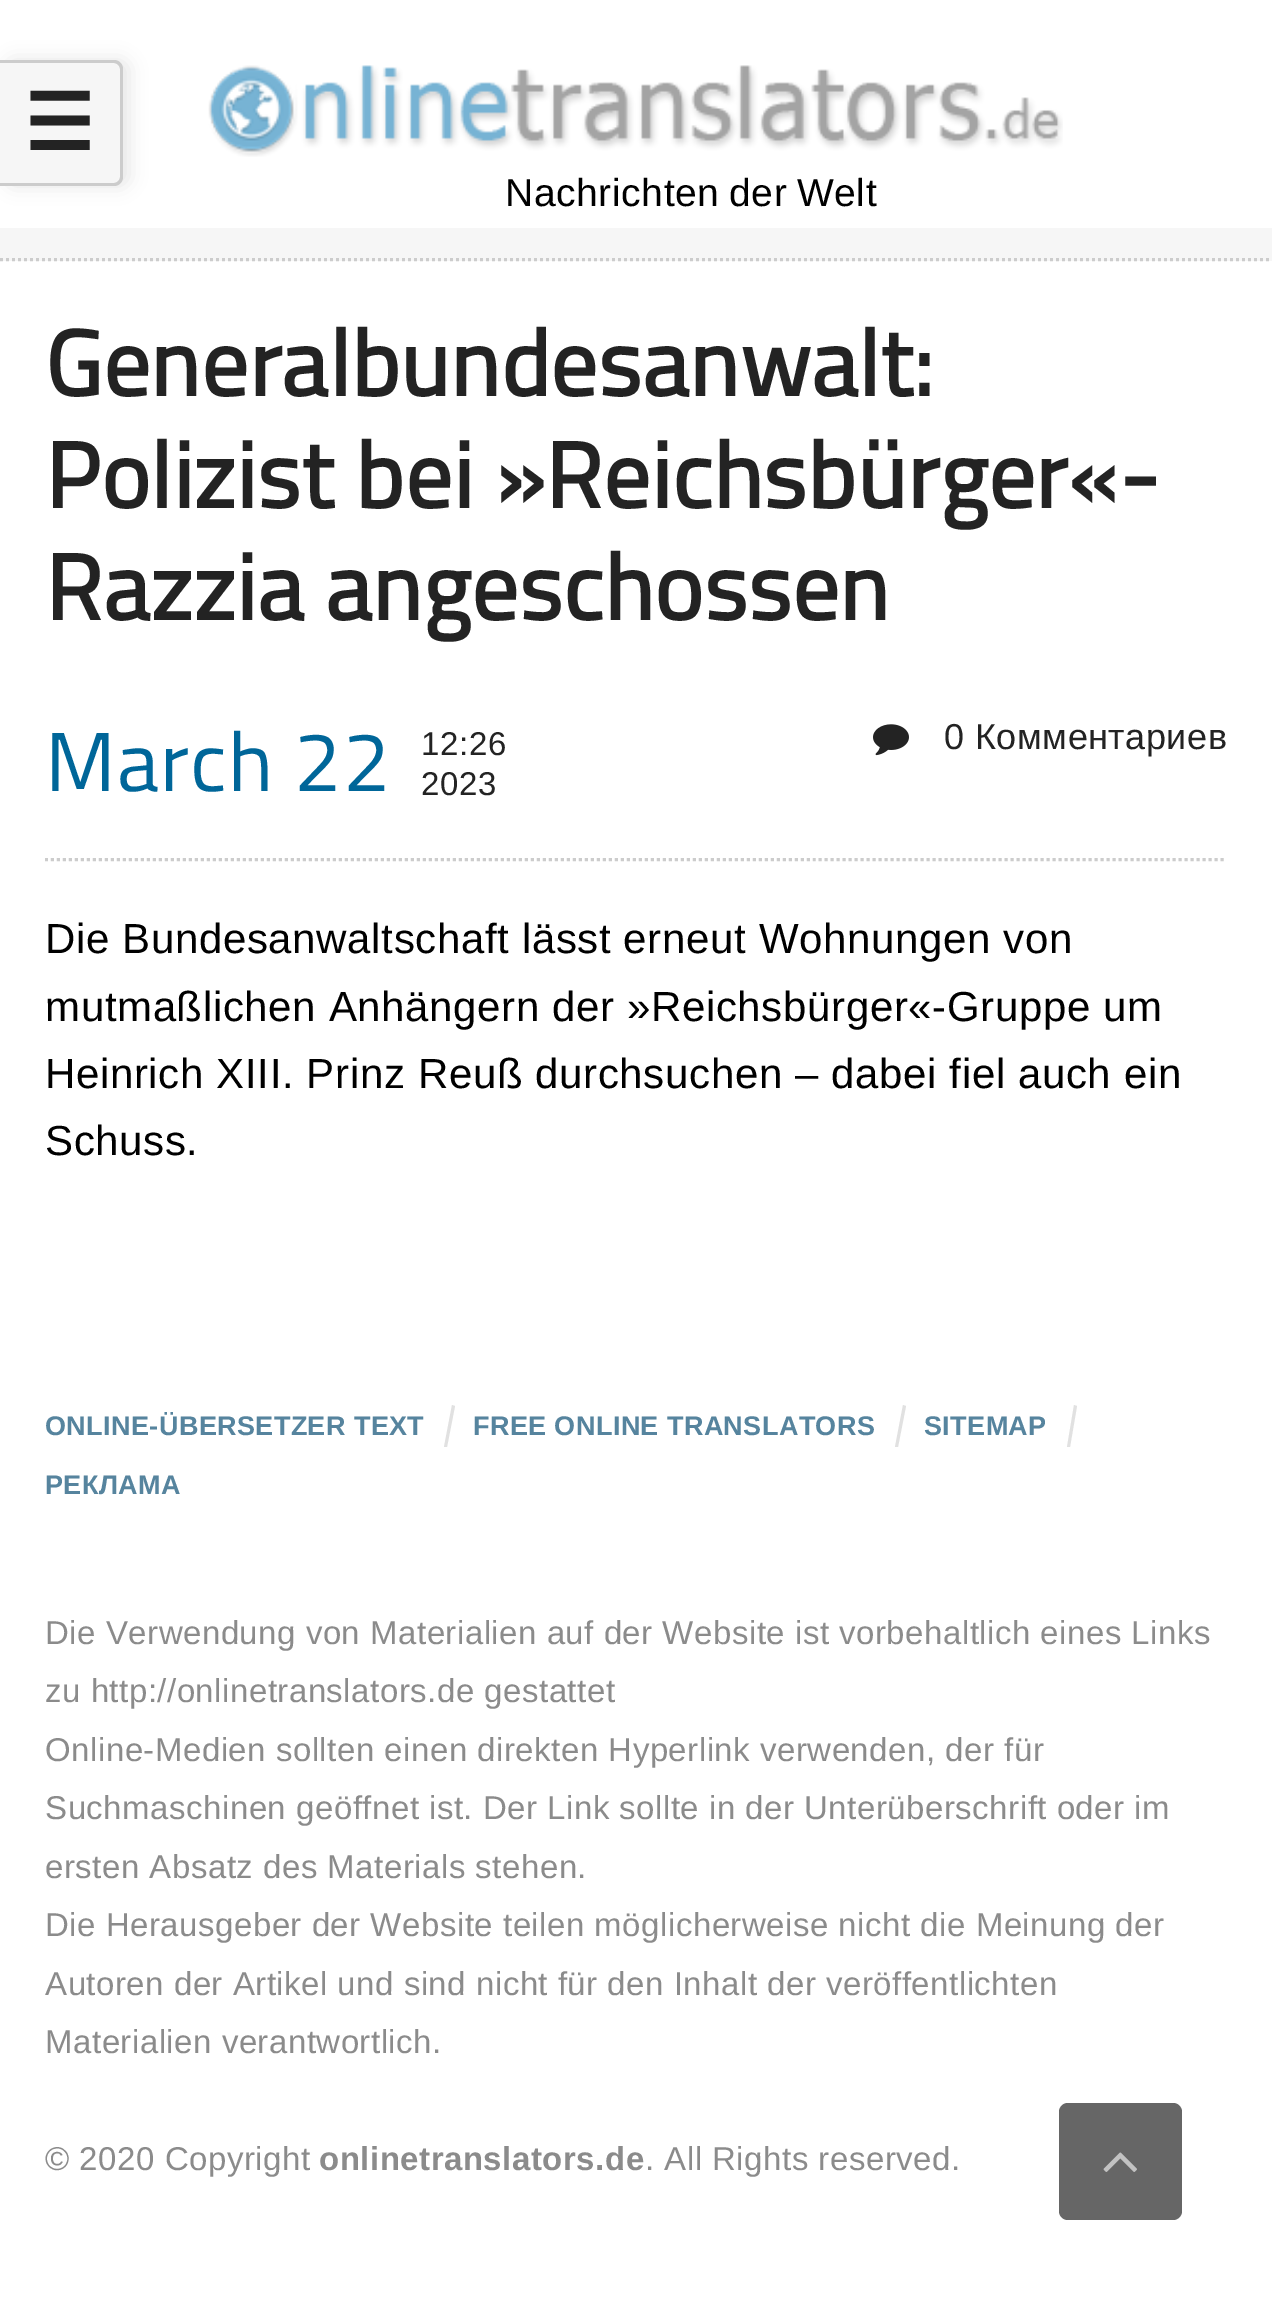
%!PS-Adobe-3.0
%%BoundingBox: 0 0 1272 2309
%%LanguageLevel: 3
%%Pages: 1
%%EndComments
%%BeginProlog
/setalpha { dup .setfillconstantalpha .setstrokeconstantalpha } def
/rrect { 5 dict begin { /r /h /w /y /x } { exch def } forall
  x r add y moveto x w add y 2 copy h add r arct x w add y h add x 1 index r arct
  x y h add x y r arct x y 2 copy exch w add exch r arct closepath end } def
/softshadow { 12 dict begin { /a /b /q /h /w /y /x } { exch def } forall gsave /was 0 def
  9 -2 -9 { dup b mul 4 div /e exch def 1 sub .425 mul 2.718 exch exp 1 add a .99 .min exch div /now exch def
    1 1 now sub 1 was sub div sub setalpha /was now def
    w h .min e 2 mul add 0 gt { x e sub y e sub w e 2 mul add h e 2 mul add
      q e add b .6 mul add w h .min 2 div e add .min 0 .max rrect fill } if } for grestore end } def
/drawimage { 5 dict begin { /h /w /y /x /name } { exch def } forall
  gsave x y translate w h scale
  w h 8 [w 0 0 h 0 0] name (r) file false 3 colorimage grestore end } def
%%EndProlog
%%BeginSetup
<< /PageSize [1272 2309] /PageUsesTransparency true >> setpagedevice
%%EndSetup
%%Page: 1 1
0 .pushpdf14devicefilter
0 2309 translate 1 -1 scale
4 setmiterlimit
1 setgray
0 0 1272 2309 rectfill
0 setgray
6 60 123 126 9 9 0.1 softshadow
0.965 setgray
newpath 0 60 moveto 114 60 lineto 119 60 123 64 123 69 curveto 123 177 lineto 123 182 119 186 114 186 curveto 0 186 lineto closepath fill
0.8 setgray
newpath 0 60 moveto 114 60 lineto 119 60 123 64 123 69 curveto 123 177 lineto 123 182 119 186 114 186 curveto 0 186 lineto closepath 0 63 moveto 114 63 lineto 117 63 120 66 120 69 curveto 120 177 lineto 120 180 117 183 114 183 curveto 0 183 lineto closepath eofill
(images/1.raw) 208 65 855 92 drawimage
0.965 setgray
0 228 1272 33 rectfill
0.8 setgray
3 setlinewidth
[3 3] 0 setdash
newpath 0 259.5 moveto 1272 259.5 lineto stroke
newpath 45 859.5 moveto 1227 859.5 lineto stroke
(images/2.raw) 873 724 36 32 drawimage
0.882 setgray
newpath 452 1405 moveto 455 1406 lineto 447 1447 lineto 444 1447 lineto closepath fill
newpath 903 1405 moveto 906 1406 lineto 898 1447 lineto 895 1447 lineto closepath fill
newpath 1074 1405 moveto 1077 1406 lineto 1070 1447 lineto 1067 1447 lineto closepath fill
0.4 setgray
1059 2103 123 117 9 rrect fill
(images/3.raw) 1103 2152 34 20 drawimage
/DejaVuSans-Bold [78 0 0 -78 0 0] selectfont
0.137 setgray
24 150 moveto 1 0 (☰) ashow
/LiberationSans-Regular [39 0 0 -39 0 0] selectfont
0 setgray
505 206 moveto -2 0 32 0.6 0 (Nachrichten der Welt) awidthshow
/TitilliumWeb-Bold [93 0 0 -93 0 0] selectfont
0.137 setgray
45 396 moveto 0.6 0 (Generalbundesanwalt:) ashow
45 508 moveto 0.6 0 (Polizist bei »Reichsbürger«-) ashow
45 620 moveto 0.6 0 (Razzia angeschossen) ashow
/TitilliumWeb-Regular [84 0 0 -84 0 0] selectfont
0 0.4 0.6 setrgbcolor
45 791 moveto 1.25 0 (March 22) ashow
/LiberationSans-Regular [33 0 0 -33 0 0] selectfont
0.137 setgray
421 755 moveto 0.6 0 (12:26) ashow
421 795 moveto 0.6 0 (2023) ashow
/LiberationSans-Regular [36 0 0 -36 0 0] selectfont
944 749 moveto 0.5 0 (0 Комментариев) ashow
/LiberationSans-Regular [42 0 0 -42 0 0] selectfont
0 setgray
45 953 moveto 0.63 0 (Die Bundesanwaltschaft lässt erneut Wohnungen von) ashow
45 1021 moveto 0.63 0 (mutmaßlichen Anhängern der »Reichsbürger«-Gruppe um) ashow
45 1088 moveto 0.63 0 (Heinrich XIII. Prinz Reuß durchsuchen – dabei fiel auch ein) ashow
45 1155 moveto 0.63 0 (Schuss.) ashow
/LiberationSans-Bold [27 0 0 -27 0 0] selectfont
0.337 0.518 0.62 setrgbcolor
45 1435 moveto 0.4 0 (ONLINE-ÜBERSETZER TEXT) ashow
473 1435 moveto 0.4 0 (FREE ONLINE TRANSLATORS) ashow
924 1435 moveto 0.4 0 (SITEMAP) ashow
45 1494 moveto 0.4 0 (РЕКЛАМА) ashow
/LiberationSans-Regular [33 0 0 -33 0 0] selectfont
0.545 setgray
45 1644 moveto 0.5 0 (Die Verwendung von Materialien auf der Website ist vorbehaltlich eines Links) ashow
45 1702 moveto 0.5 0 (zu http://onlinetranslators.de gestattet) ashow
45 1761 moveto 0.5 0 (Online-Medien sollten einen direkten Hyperlink verwenden, der für) ashow
45 1819 moveto 0.5 0 (Suchmaschinen geöffnet ist. Der Link sollte in der Unterüberschrift oder im) ashow
45 1878 moveto 0.5 0 (ersten Absatz des Materials stehen.) ashow
45 1936 moveto 0.5 0 (Die Herausgeber der Website teilen möglicherweise nicht die Meinung der) ashow
45 1995 moveto 0.5 0 (Autoren der Artikel und sind nicht für den Inhalt der veröffentlichten) ashow
45 2053 moveto 0.5 0 (Materialien verantwortlich.) ashow
45 2170 moveto 0.5 0 (© 2020 Copyright) ashow
/LiberationSans-Bold [33 0 0 -33 0 0] selectfont
319 2170 moveto 0.5 0 (onlinetranslators.de) ashow
/LiberationSans-Regular [33 0 0 -33 0 0] selectfont
645 2170 moveto 0.5 0 (. All Rights reserved.) ashow
.poppdf14devicefilter showpage
%%EOF
